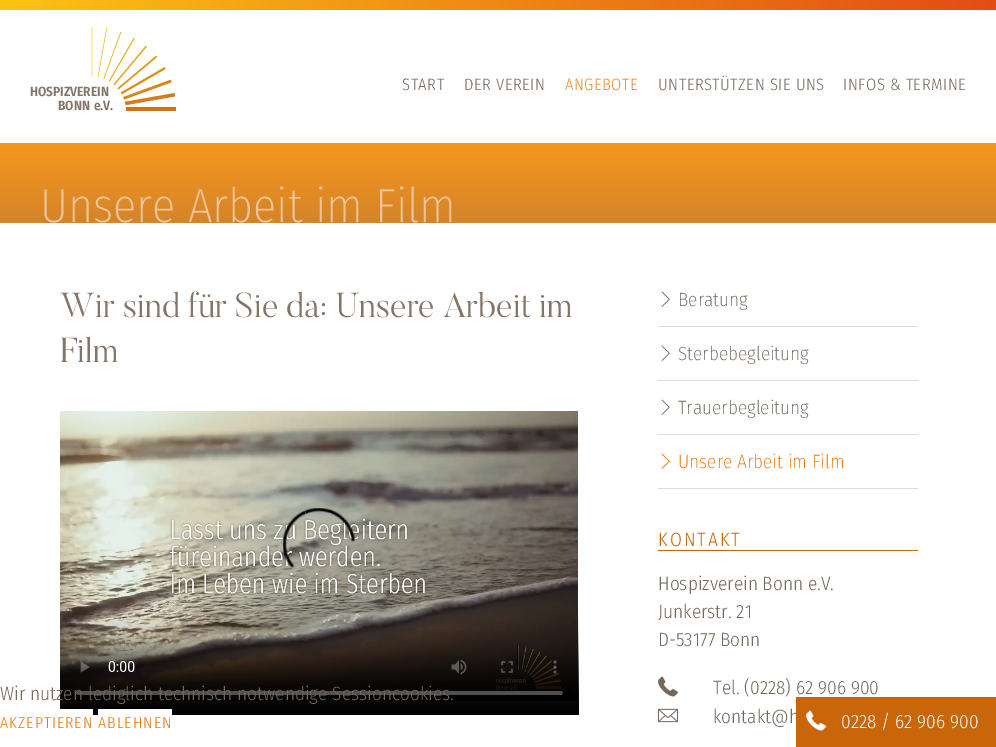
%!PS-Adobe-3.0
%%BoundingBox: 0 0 996 747
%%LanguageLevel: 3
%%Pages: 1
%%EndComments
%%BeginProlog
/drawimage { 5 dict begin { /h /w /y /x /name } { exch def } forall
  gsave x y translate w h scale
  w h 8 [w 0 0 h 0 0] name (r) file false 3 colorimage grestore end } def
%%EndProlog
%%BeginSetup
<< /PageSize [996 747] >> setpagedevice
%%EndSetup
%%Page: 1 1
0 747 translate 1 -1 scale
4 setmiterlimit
1 setgray
0 0 996 747 rectfill
gsave newpath 0 0 moveto 996 0 lineto 996 10 lineto 0 10 lineto closepath clip newpath
<< /ShadingType 2 /ColorSpace /DeviceRGB /Coords [0 5 996 5] /Extend [true true] /Function << /FunctionType 2 /Domain [0 1] /C0 [0.988 0.765 0.078] /C1 [0.886 0.302 0.078] /N 1 >> >> shfill grestore
(images/1.raw) 91 27 85 84 drawimage
gsave newpath 0 143 moveto 996 143 lineto 996 223 lineto 0 223 lineto closepath clip newpath
<< /ShadingType 2 /ColorSpace /DeviceRGB /Coords [498 143 498 323] /Extend [true true] /Function << /FunctionType 2 /Domain [0 1] /C0 [0.969 0.592 0.118] /C1 [0.671 0.424 0.212] /N 1 >> >> shfill grestore
(images/2.raw) 60 411 519 304 drawimage
0.867 setgray
658 326 260 1 rectfill
(images/3.raw) 661 291 9 16 drawimage
658 380 260 1 rectfill
(images/3.raw) 661 345 9 16 drawimage
658 434 260 1 rectfill
(images/3.raw) 661 399 9 16 drawimage
658 488 260 1 rectfill
(images/4.raw) 661 453 9 16 drawimage
0.788 0.4 0.035 setrgbcolor
658 550 260 1 rectfill
(images/5.raw) 658 676 20 21 drawimage
(images/6.raw) 658 708 20 15 drawimage
1 setgray
98 709 74 6 rectfill
60 709 33 6 rectfill
/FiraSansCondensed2-Light [16.5 0 0 -16.5 0 0] selectfont
0.455 0.404 0.357 setrgbcolor
402 90 moveto 0.5 0 (START) ashow
464 90 moveto 0.5 0 (DER VEREIN) ashow
/FiraSansCondensed-Light [16.5 0 0 -16.5 0 0] selectfont
0.925 0.455 0.016 setrgbcolor
565 90 moveto 0.5 0 (ANGEBOTE) ashow
/FiraSansCondensed2-Light [16.5 0 0 -16.5 0 0] selectfont
0.455 0.404 0.357 setrgbcolor
658 90 moveto 0.5 0 (UNTERSTÜTZEN SIE UNS) ashow
843 90 moveto 0.5 0 (INFOS & TERMINE) ashow
/FiraSansCondensed-SemiBold [13.25 0 0 -13.25 0 0] selectfont
0.514 0.459 0.408 setrgbcolor
30 96 moveto (HOSPIZVEREIN) show
58 110 moveto 1 0 32 (BONN e.V.) widthshow
/FiraSansCondensed-Light [48 0 0 -48 0 0] selectfont
0.945 0.769 0.6 setrgbcolor
40 222 moveto (Unsere Arbeit im Film) show
/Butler-Light [34.5 0 0 -34.5 0 0] selectfont
0.514 0.459 0.408 setrgbcolor
60 317 moveto (Wir sind für Sie da: Unsere Arbeit im) show
60 362 moveto (Film) show
/FiraSansCondensed-Light [19.2 0 0 -19.2 0 0] selectfont
0.455 0.404 0.357 setrgbcolor
678 306 moveto (Beratung) show
678 360 moveto (Sterbebegleitung) show
678 414 moveto (Trauerbegleitung) show
0.925 0.455 0.016 setrgbcolor
678 468 moveto (Unsere Arbeit im Film) show
/FiraSansCondensed2-Light [19.2 0 0 -19.2 0 0] selectfont
0.788 0.4 0.035 setrgbcolor
658 546 moveto 2 0 (KONTAKT) ashow
0.455 0.404 0.357 setrgbcolor
658 590 moveto (Hospizverein Bonn e.V.) show
658 618 moveto (Junkerstr. 21) show
658 646 moveto (D-53177 Bonn) show
713 694 moveto (Tel. \(0228\) 62 906 900) show
713 723 moveto (kontakt@h) show
0 700 moveto (Wir nutzen lediglich technisch notwendige Sessioncookies.) show
/FiraSansCondensed2-Light [15.75 0 0 -15.75 0 0] selectfont
0.925 0.455 0.016 setrgbcolor
0 728 moveto 1 0 (AKZEPTIEREN ABLEHNEN) ashow
0.788 0.4 0.035 setrgbcolor
796 697 200 50 rectfill
(images/7.raw) 806 710 20 21 drawimage
/FiraSansCondensed2-Light [19.2 0 0 -19.2 0 0] selectfont
1 setgray
841 728 moveto (0228 / 62 906 900) show
showpage
%%EOF
